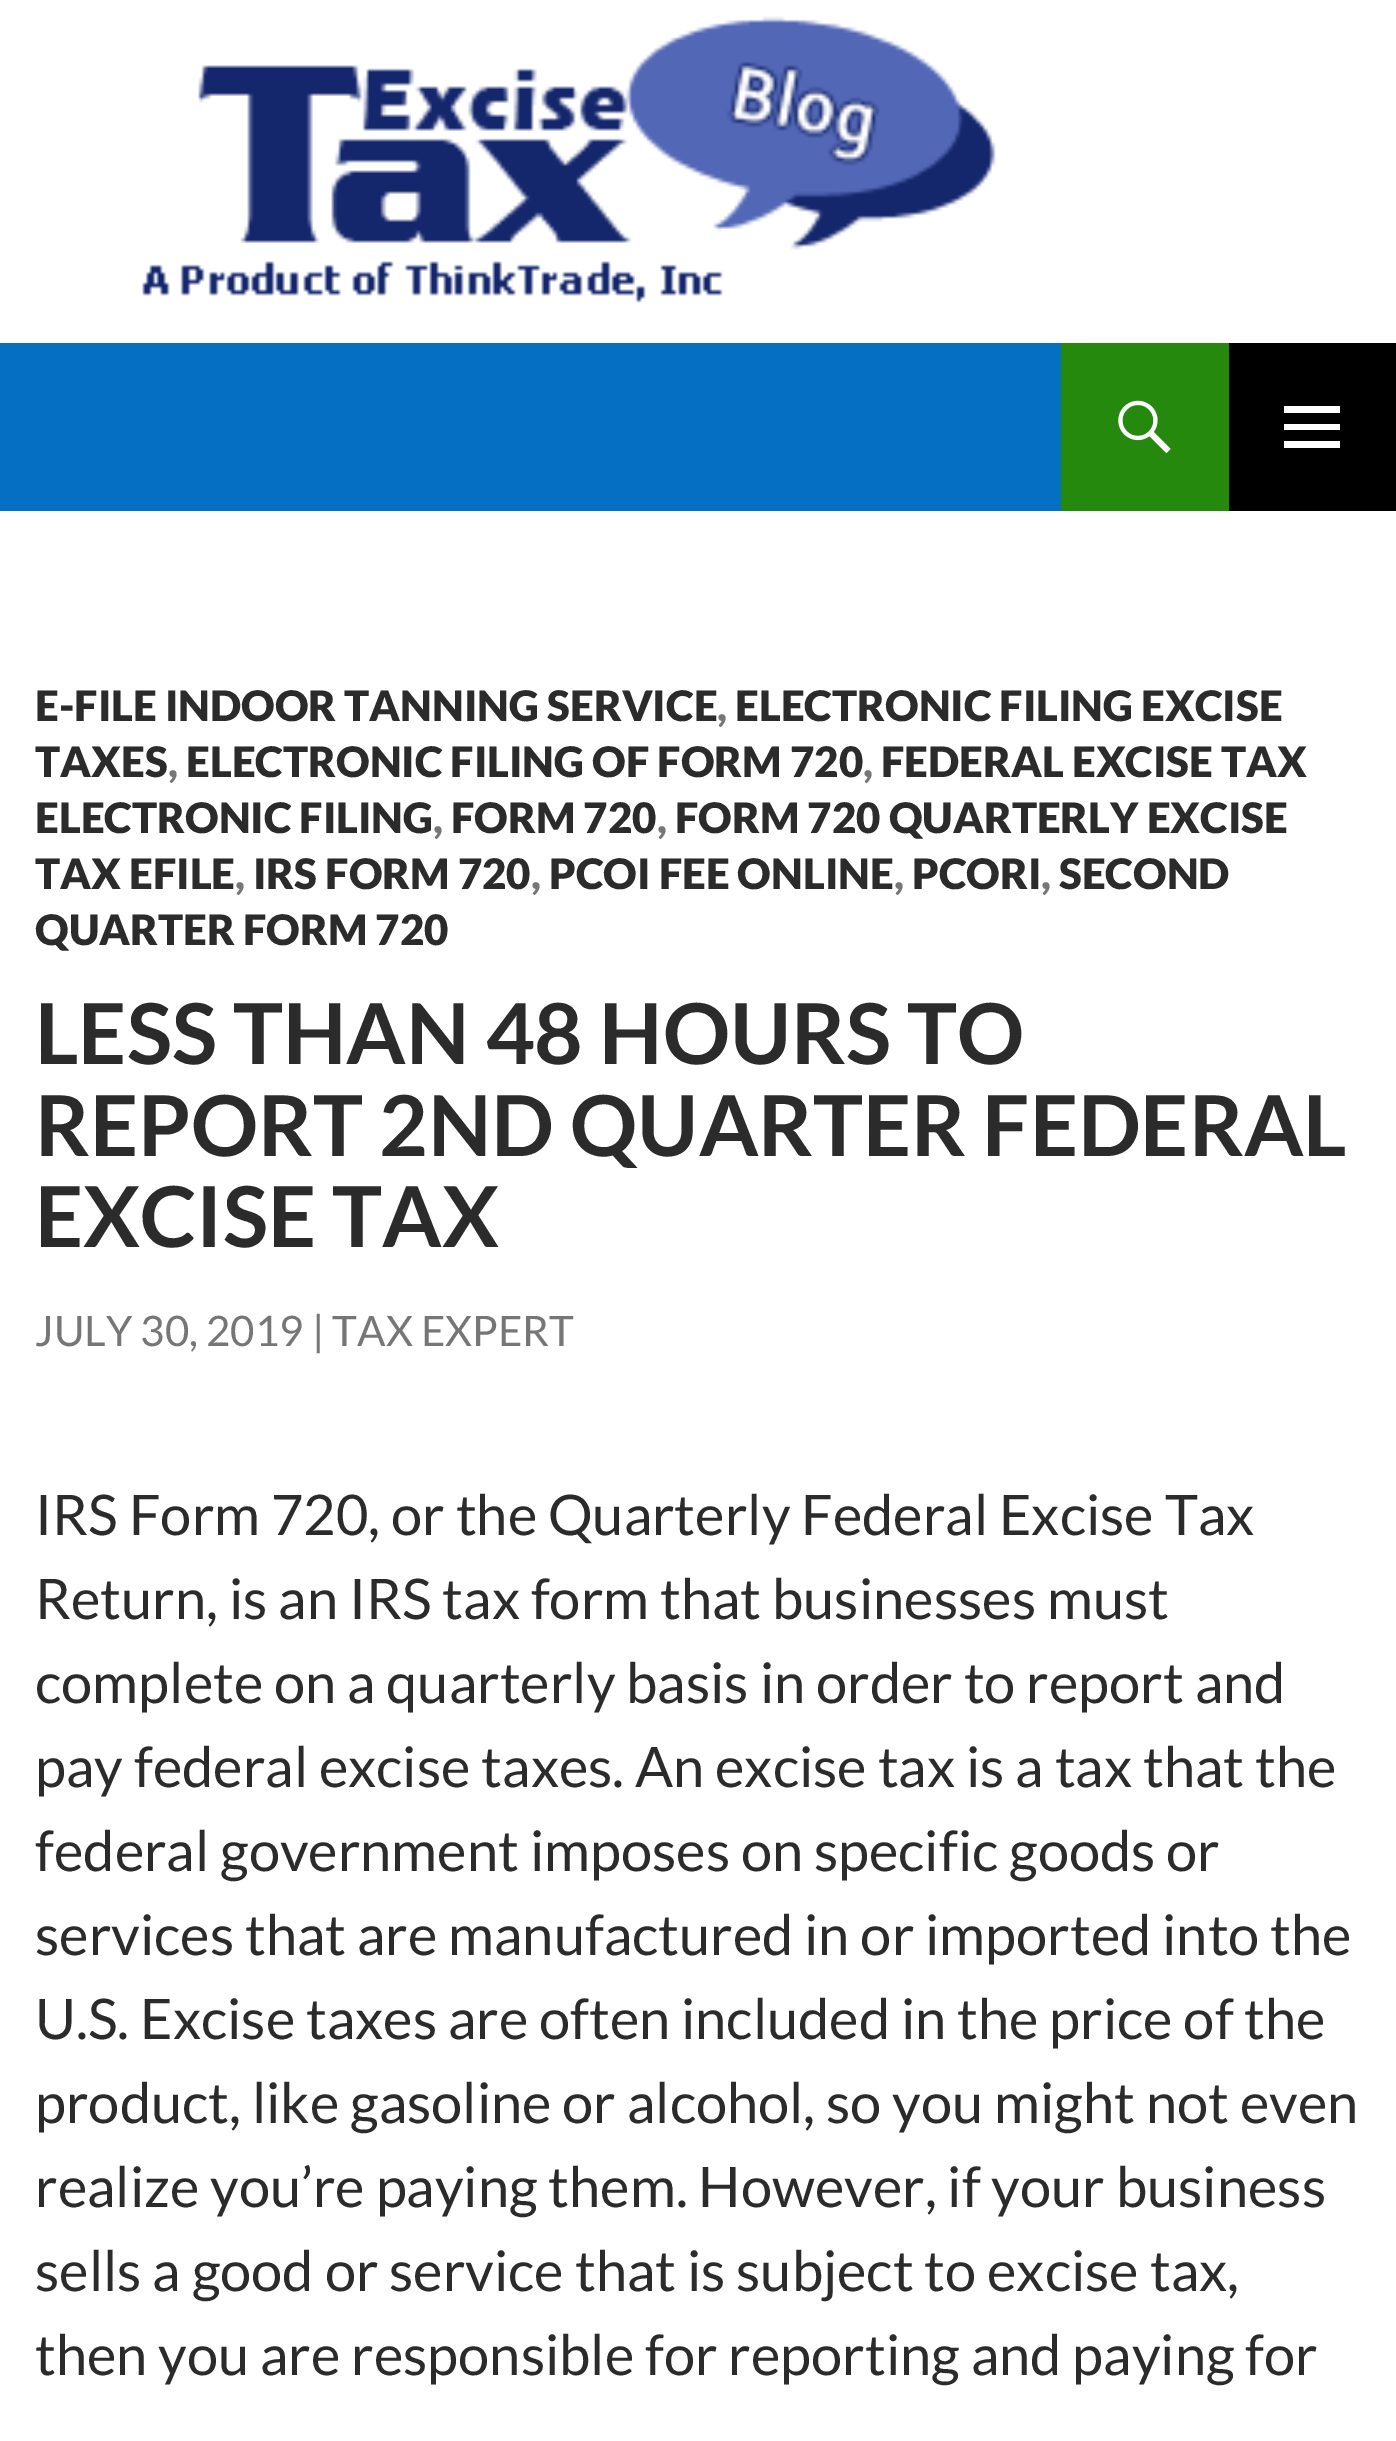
%!PS-Adobe-3.0
%%BoundingBox: 0 0 1396 2441
%%LanguageLevel: 3
%%Pages: 1
%%EndComments
%%BeginProlog
/drawimage { 5 dict begin { /h /w /y /x /name } { exch def } forall
  gsave x y translate w h scale
  w h 8 [w 0 0 h 0 0] name (r) file false 3 colorimage grestore end } def
%%EndProlog
%%BeginSetup
<< /PageSize [1396 2441] >> setpagedevice
%%EndSetup
%%Page: 1 1
0 2441 translate 1 -1 scale
4 setmiterlimit
1 setgray
0 0 1396 2441 rectfill
(images/1.raw) 142 16 854 287 drawimage
0.02 0.435 0.765 setrgbcolor
0 343 1061 168 rectfill
0.141 0.537 0.051 setrgbcolor
1061 343 168 168 rectfill
(images/2.raw) 1118 400 53 54 drawimage
0 setgray
1229 343 167 168 rectfill
1 setgray
newpath 1284 448 moveto 1284 441 lineto 1340 441 lineto 1340 448 lineto closepath 1284 430 moveto 1284 424 lineto 1340 424 lineto 1340 430 lineto closepath 1284 413 moveto 1284 406 lineto 1340 406 lineto 1340 413 lineto closepath fill
/Lato-Black [42 0 0 -42 0 0] selectfont
0.169 setgray
35 721 moveto (E-FILE INDOOR TANNING SERVICE) show
0.463 setgray
717 721 moveto (,) show
0.169 setgray
735 721 moveto (ELECTRONIC FILING EXCISE) show
35 777 moveto (TAXES) show
0.463 setgray
168 777 moveto (,) show
0.169 setgray
186 777 moveto (ELECTRONIC FILING OF FORM 720) show
0.463 setgray
863 777 moveto (,) show
0.169 setgray
881 777 moveto (FEDERAL EXCISE TAX) show
35 833 moveto (ELECTRONIC FILING) show
0.463 setgray
433 833 moveto (,) show
0.169 setgray
451 833 moveto (FORM 720) show
0.463 setgray
657 833 moveto (,) show
0.169 setgray
675 833 moveto (FORM 720 QUARTERLY EXCISE) show
35 889 moveto (TAX EFILE) show
0.463 setgray
235 889 moveto (,) show
0.169 setgray
253 889 moveto (IRS FORM 720) show
0.463 setgray
531 889 moveto (,) show
0.169 setgray
549 889 moveto (PCOI FEE ONLINE) show
0.463 setgray
894 889 moveto (,) show
0.169 setgray
912 889 moveto (PCORI) show
0.463 setgray
1041 889 moveto (,) show
0.169 setgray
1059 889 moveto (SECOND) show
35 945 moveto (QUARTER FORM 720) show
/Lato-Bold [84 0 0 -84 0 0] selectfont
35 1064 moveto (LESS THAN 48 HOURS TO) show
35 1156 moveto (REPORT 2ND QUARTER FEDERAL) show
35 1247 moveto (EXCISE TAX) show
/Lato-Regular [42 0 0 -42 0 0] selectfont
0.463 setgray
35 1346 moveto (JULY 30, 2019 | TAX EXPERT) show
/Lato-Regular [56 0 0 -56 0 0] selectfont
0.169 setgray
35 1535 moveto (IRS Form 720, or the Quarterly Federal Excise Tax) show
35 1619 moveto (Return, is an IRS tax form that businesses must) show
35 1703 moveto (complete on a quarterly basis in order to report and) show
35 1787 moveto (pay federal excise taxes. An excise tax is a tax that the) show
35 1871 moveto (federal government imposes on specific goods or) show
35 1955 moveto (services that are manufactured in or imported into the) show
35 2039 moveto (U.S. Excise taxes are often included in the price of the) show
35 2123 moveto (product, like gasoline or alcohol, so you might not even) show
35 2207 moveto (realize you’re paying them. However, if your business) show
35 2291 moveto (sells a good or service that is subject to excise tax,) show
35 2375 moveto (then you are responsible for reporting and paying for) show
showpage
%%EOF
